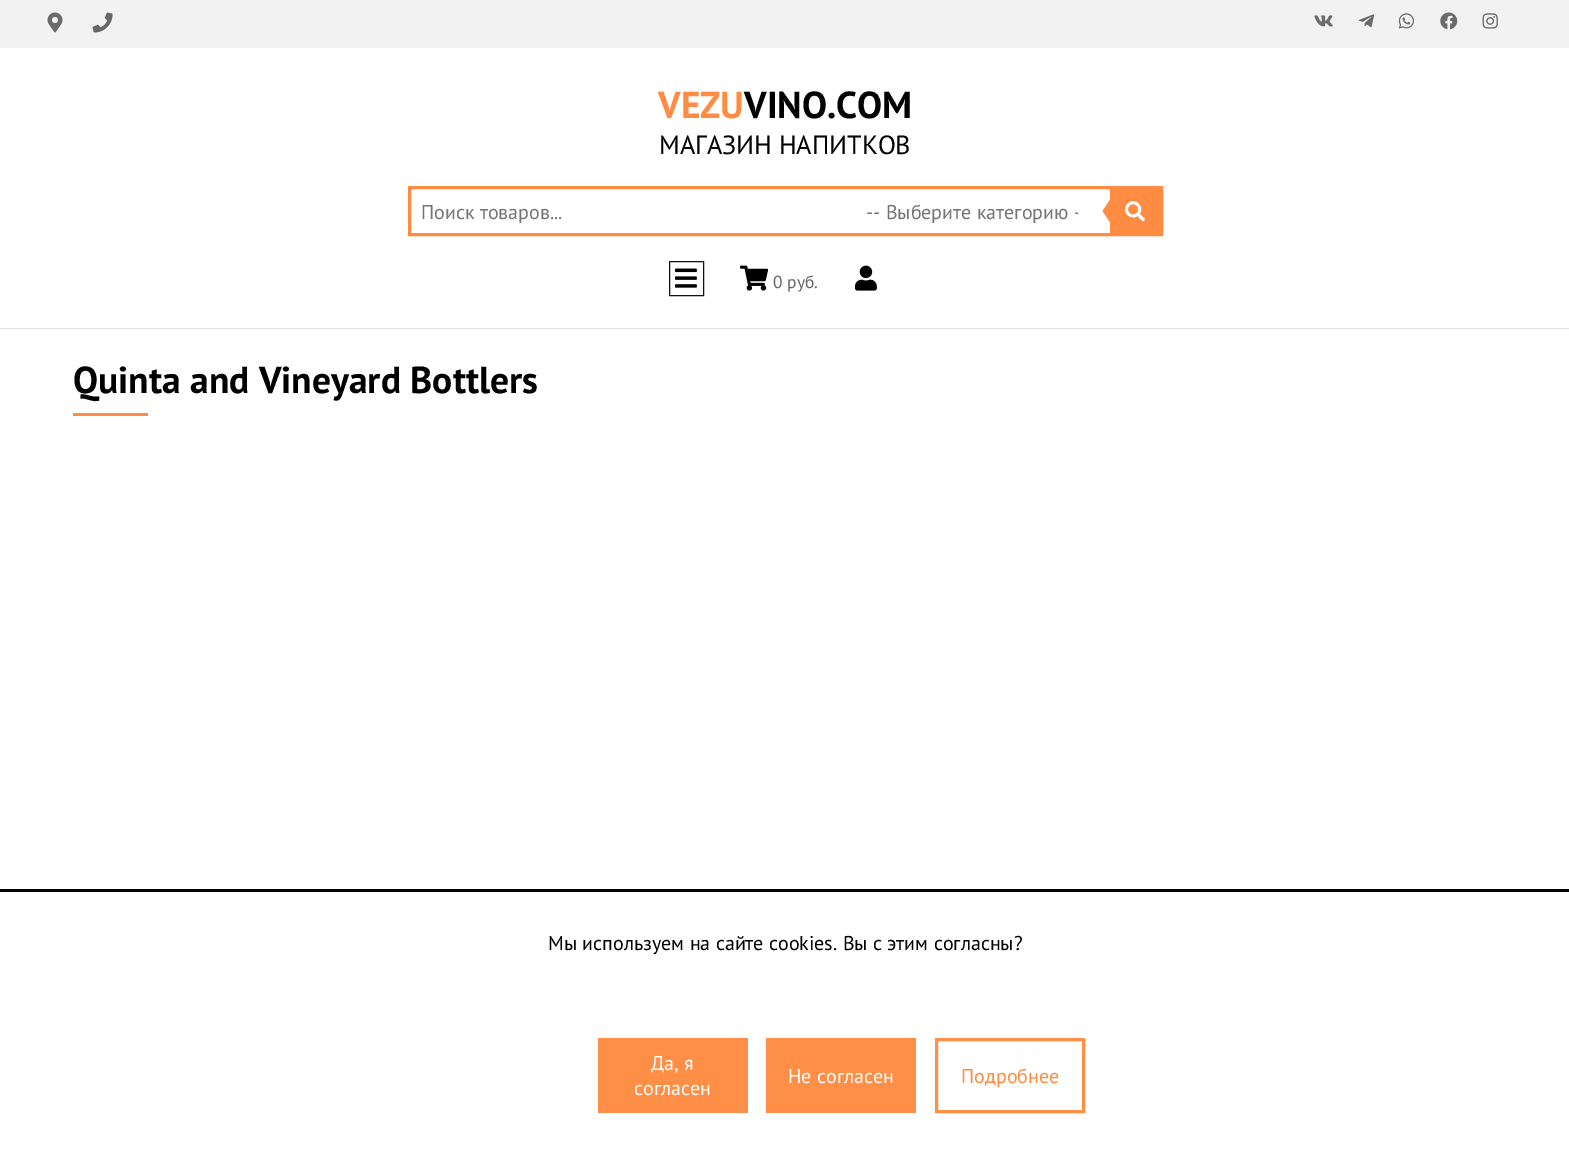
%!PS-Adobe-3.0
%%BoundingBox: 0 0 1569 1156
%%LanguageLevel: 3
%%Pages: 1
%%EndComments
%%BeginProlog
/drawimage { 5 dict begin { /h /w /y /x /name } { exch def } forall
  gsave x y translate w h scale
  w h 8 [w 0 0 h 0 0] name (r) file false 3 colorimage grestore end } def
%%EndProlog
%%BeginSetup
<< /PageSize [1569 1156] >> setpagedevice
%%EndSetup
%%Page: 1 1
0 1156 translate 1 -1 scale
4 setmiterlimit
1 setgray
0 0 1569 1156 rectfill
0.949 setgray
0 0 1569 48 rectfill
(images/1.raw) 47 12 16 21 drawimage
(images/2.raw) 92 12 21 21 drawimage
(images/3.raw) 1314 15 19 12 drawimage
(images/4.raw) 1358 14 17 14 drawimage
(images/5.raw) 1398 13 16 16 drawimage
(images/6.raw) 1440 12 18 18 drawimage
(images/7.raw) 1482 13 16 16 drawimage
0.878 setgray
0 328 1569 1 rectfill
1 0.549 0.259 setrgbcolor
3 setlinewidth
409.5 187.5 752 47 rectstroke
1110 189 50 44 rectfill
newpath 1112.5 196 moveto 1112.5 226 lineto 1102.5 211 lineto closepath fill
(images/8.raw) 1125 201 20 21 drawimage
0.067 setgray
1 setlinewidth
669.5 261.5 34 34 rectstroke
(images/9.raw) 675 268 22 20 drawimage
(images/10.raw) 740 265 29 26 drawimage
(images/11.raw) 855 265 22 26 drawimage
1 0.549 0.259 setrgbcolor
73 413 75 3 rectfill
0 setgray
0 889 1569 3 rectfill
1 0.557 0.275 setrgbcolor
598 1038 150 75 rectfill
766 1038 150 75 rectfill
3 setlinewidth
936.5 1039.5 147 72 rectstroke
/PTSans-Bold [37.5 0 0 -37.5 0 0] selectfont
1 0.549 0.259 setrgbcolor
658 118 moveto (VEZU) show
0 setgray
744 118 moveto (VINO.COM) show
/PTSans-Regular [26.25 0 0 -26.25 0 0] selectfont
659 154 moveto (МАГАЗИН НАПИТКОВ) show
/PTSans-Regular [20 0 0 -20 0 0] selectfont
0.459 setgray
421 219 moveto (Поиск товаров...) show
gsave
866 199 212 25 rectclip
866 219 moveto (-- Выберите категорию -) show
grestore
/PTSans-Regular [17.5 0 0 -17.5 0 0] selectfont
0.4 setgray
773 288 moveto (0 руб.) show
/PTSans-Bold [37.5 0 0 -37.5 0 0] selectfont
0 setgray
73 393 moveto (Quinta and Vineyard Bottlers) show
/PTSans-Regular [20 0 0 -20 0 0] selectfont
548 950 moveto (Мы используем на сайте cookies. Вы с этим согласны?) show
1 setgray
651 1070 moveto (Да, я) show
634 1095 moveto (согласен) show
788 1083 moveto (Не согласен) show
1 0.549 0.259 setrgbcolor
961 1083 moveto (Подробнее) show
showpage
%%EOF
